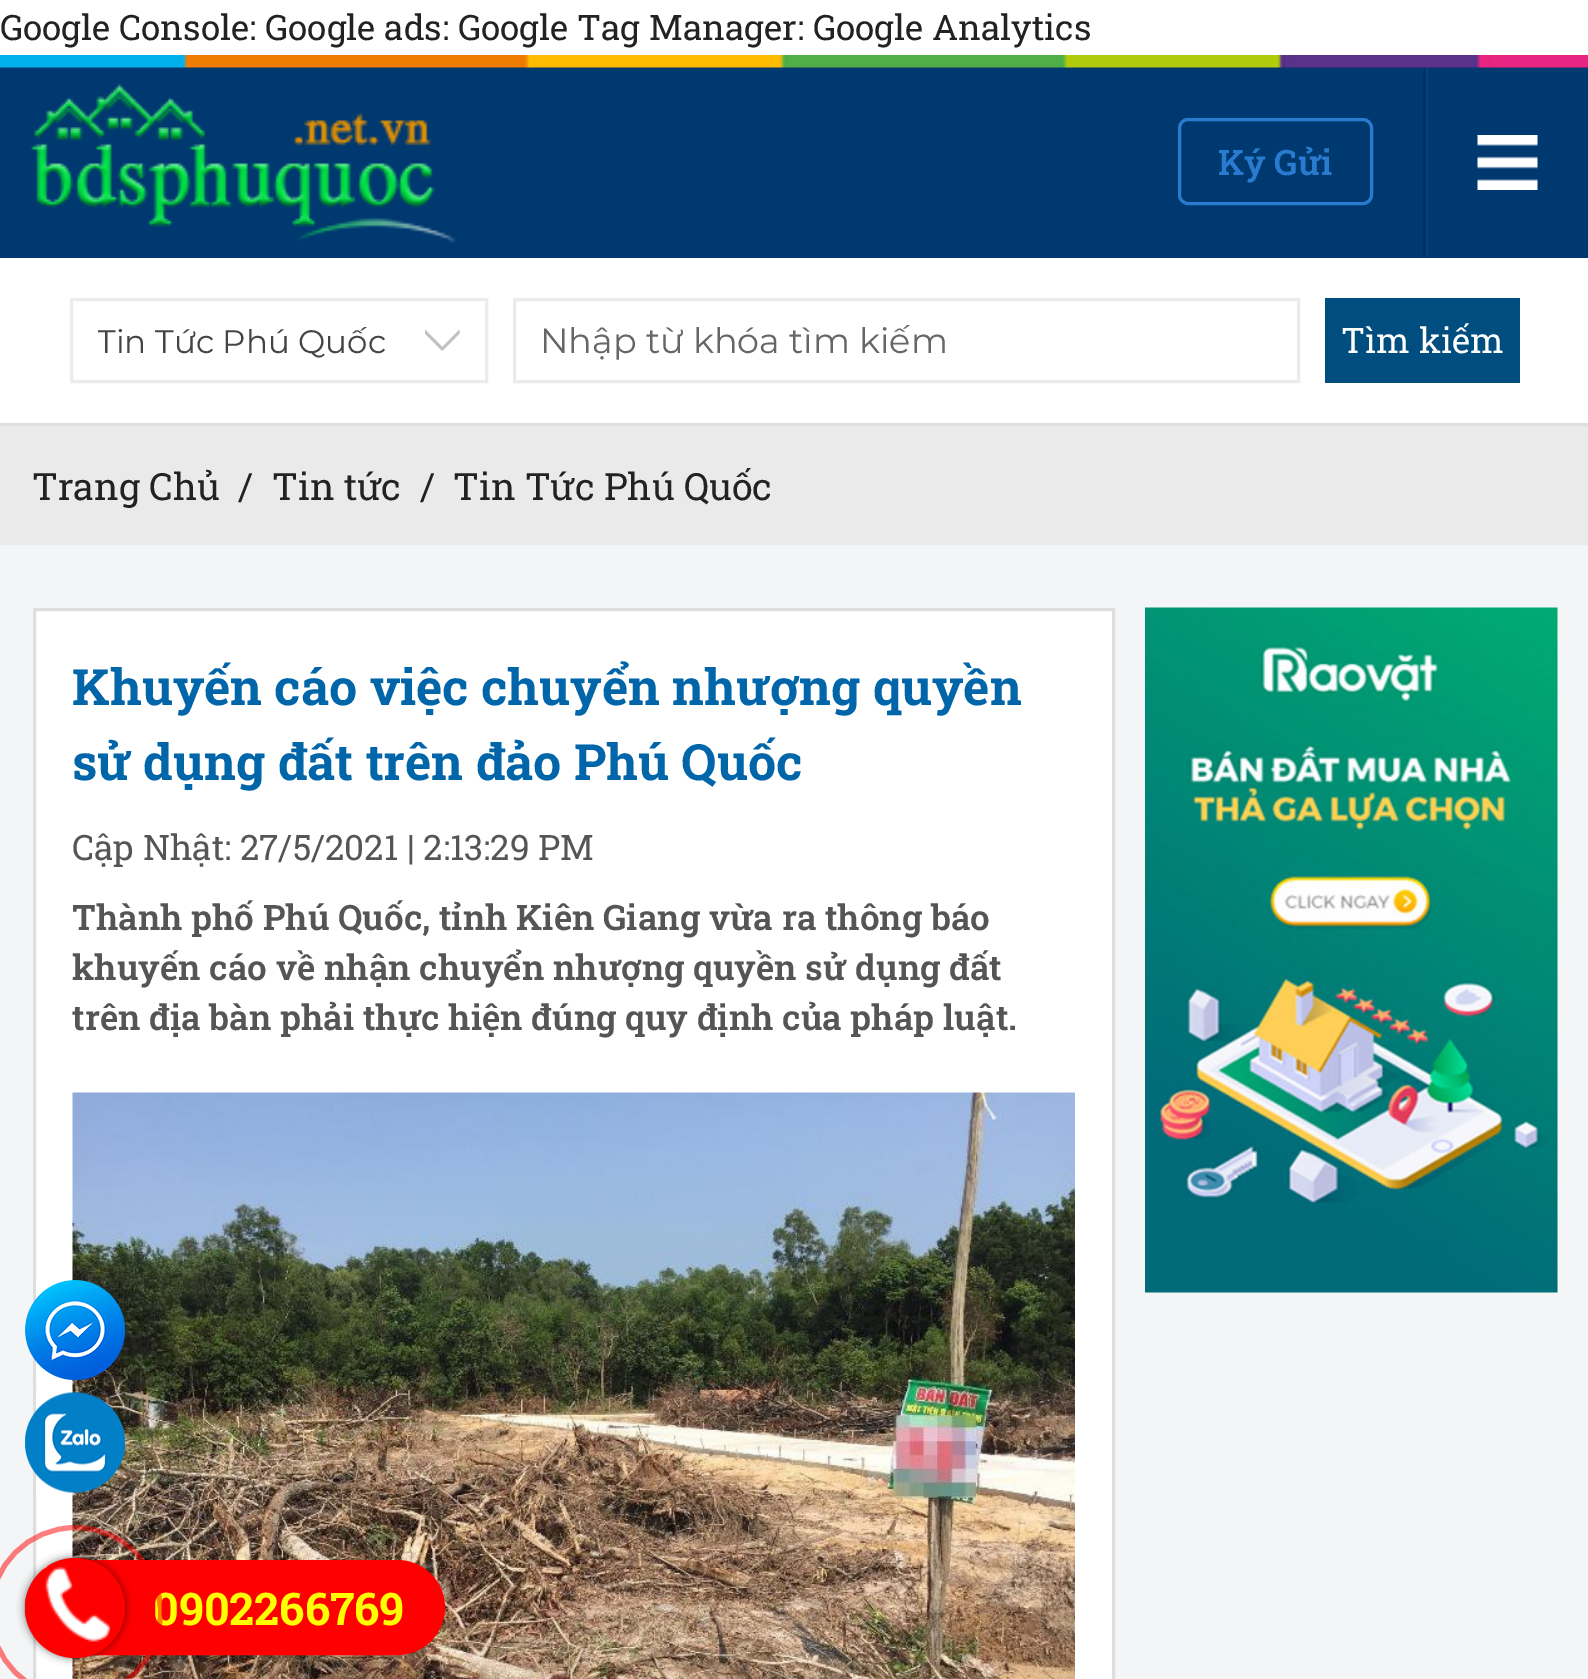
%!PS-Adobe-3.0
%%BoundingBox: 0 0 1588 1679
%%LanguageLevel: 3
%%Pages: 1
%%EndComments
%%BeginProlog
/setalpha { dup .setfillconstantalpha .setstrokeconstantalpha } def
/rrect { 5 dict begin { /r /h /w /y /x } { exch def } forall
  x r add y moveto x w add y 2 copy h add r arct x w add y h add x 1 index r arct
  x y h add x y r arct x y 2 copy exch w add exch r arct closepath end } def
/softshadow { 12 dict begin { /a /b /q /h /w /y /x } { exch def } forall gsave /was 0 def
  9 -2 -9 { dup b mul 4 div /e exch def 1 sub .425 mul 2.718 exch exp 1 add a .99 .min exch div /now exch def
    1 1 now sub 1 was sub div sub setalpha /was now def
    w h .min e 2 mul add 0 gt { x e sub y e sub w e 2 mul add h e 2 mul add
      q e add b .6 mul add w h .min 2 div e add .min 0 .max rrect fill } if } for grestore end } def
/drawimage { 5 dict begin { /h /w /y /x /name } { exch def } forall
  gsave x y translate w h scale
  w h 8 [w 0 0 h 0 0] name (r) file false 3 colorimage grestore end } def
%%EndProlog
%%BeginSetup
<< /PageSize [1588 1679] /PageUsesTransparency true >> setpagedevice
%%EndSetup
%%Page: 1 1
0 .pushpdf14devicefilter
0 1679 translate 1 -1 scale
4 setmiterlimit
1 setgray
0 0 1588 1679 rectfill
0.059 0.173 0.392 setrgbcolor
0 67 1588 1 rectfill
(images/1.raw) 0 55 1588 13 drawimage
0 0.22 0.439 setrgbcolor
0 68 1588 190 rectfill
(images/2.raw) 31 84 425 159 drawimage
0 0.192 0.38 setrgbcolor
1423 68 3 187 rectfill
0.157 0.482 0.808 setrgbcolor
3 setlinewidth
1179.5 119.5 192 84 8.5 rrect stroke
(images/3.raw) 1477 135 61 55 drawimage
0 0.263 0.522 setrgbcolor
1426 68 2 187 rectfill
0.871 setgray
0 423 1588 3 rectfill
0.925 setgray
71.5 299.5 415 82 rectstroke
(images/4.raw) 425 329 35 22 drawimage
(images/5.raw) 425 330 35 21 drawimage
514.5 299.5 784 82 rectstroke
0 0.306 0.498 setrgbcolor
1325 298 195 85 rectfill
0.918 setgray
0 426 1588 119 rectfill
0.957 0.961 0.969 setrgbcolor
0 545 1588 1134 rectfill
1 setgray
newpath 34.5 609.5 moveto 1113.5 609.5 lineto 1113.5 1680.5 lineto 34.5 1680.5 lineto closepath gsave fill grestore
0.871 setgray
stroke
(images/6.raw) 72 1092 1003 587 drawimage
(images/7.raw) 1145 607 413 686 drawimage
(images/8.raw) 25 1280 100 100 drawimage
(images/9.raw) 25 1392 100 101 drawimage
1 0 0 setrgbcolor
26.5 1561.5 417 92 46 rrect gsave fill grestore
stroke
/RobotoSlab-Regular [35 0 0 -35 0 0] selectfont
0.133 setgray
0 40 moveto (Google Console: Google ads: Google Tag Manager: Google Analytics) show
/RobotoSlab-SemiBold [35 0 0 -35 0 0] selectfont
0.157 0.482 0.808 setrgbcolor
1218 175 moveto (Ký Gửi) show
gsave
98 315 312 50 rectclip
/Montserrat-Regular [32.5 0 0 -32.5 0 0] selectfont
0.267 setgray
97 353 moveto (Tin Tức Phú Quốc) show
grestore
/Montserrat-Regular [35 0 0 -35 0 0] selectfont
0.4 setgray
540 353 moveto (Nhập từ khóa tìm kiếm) show
/RobotoSlab-Regular [35 0 0 -35 0 0] selectfont
1 setgray
1341 353 moveto (Tìm kiếm) show
/RobotoSlab-Regular [37.5 0 0 -37.5 0 0] selectfont
0.133 setgray
32 500 moveto (Trang Chủ) show
238 500 moveto (/) show
272 500 moveto (Tin tức) show
420 500 moveto (/) show
453 500 moveto (Tin Tức Phú Quốc) show
/RobotoSlab-Bold [50 0 0 -50 0 0] selectfont
0 0.396 0.663 setrgbcolor
72 705 moveto (Khuyến cáo việc chuyển nhượng quyền) show
72 780 moveto (sử dụng đất trên đảo Phú Quốc) show
/RobotoSlab-Regular [35 0 0 -35 0 0] selectfont
0.333 setgray
72 860 moveto (Cập Nhật: 27/5/2021 | 2:13:29 PM) show
/RobotoSlab-SemiBold [35 0 0 -35 0 0] selectfont
72 930 moveto (Thành phố Phú Quốc, tỉnh Kiên Giang vừa ra thông báo) show
72 980 moveto (khuyến cáo về nhận chuyển nhượng quyền sử dụng đất) show
72 1030 moveto (trên địa bàn phải thực hiện đúng quy định của pháp luật.) show
/RobotoSlab-Bold [45 0 0 -45 0 0] selectfont
1 1 0 setrgbcolor
153 1625 moveto (0902266769) show
0.5 setalpha
1 0 0 setrgbcolor
5 setlinewidth
newpath 75.5 1612.5 85 0 360 arc closepath stroke
1 setalpha
0 setgray
25 1558 100 100 50 4 0.55 softshadow
1 0 0 setrgbcolor
newpath 75 1608 50 0 360 arc closepath fill
(images/10.raw) 44 1566 67 76 drawimage
.poppdf14devicefilter showpage
%%EOF
